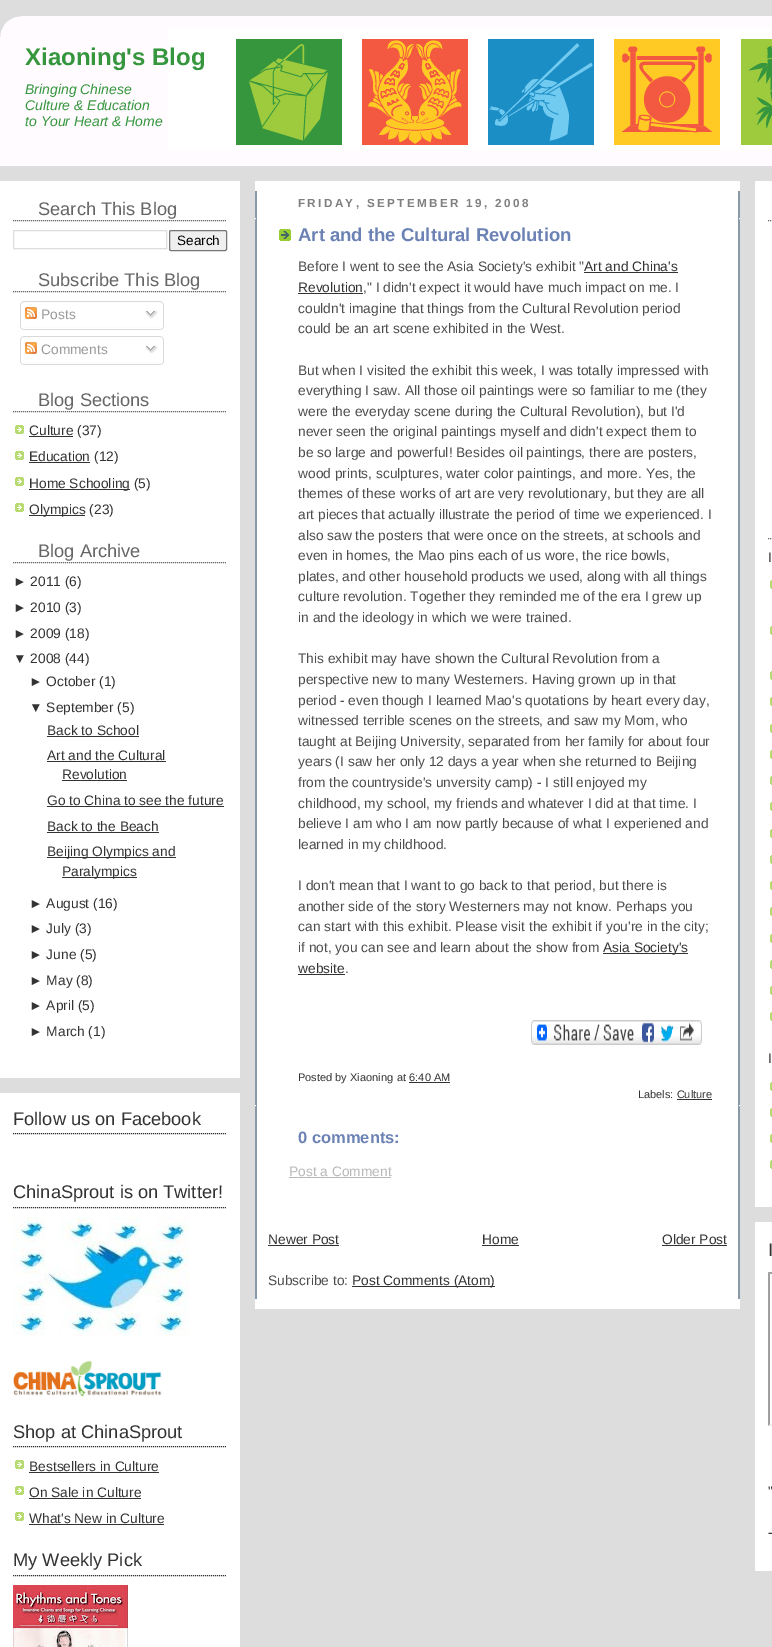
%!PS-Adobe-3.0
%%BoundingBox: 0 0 772 1647
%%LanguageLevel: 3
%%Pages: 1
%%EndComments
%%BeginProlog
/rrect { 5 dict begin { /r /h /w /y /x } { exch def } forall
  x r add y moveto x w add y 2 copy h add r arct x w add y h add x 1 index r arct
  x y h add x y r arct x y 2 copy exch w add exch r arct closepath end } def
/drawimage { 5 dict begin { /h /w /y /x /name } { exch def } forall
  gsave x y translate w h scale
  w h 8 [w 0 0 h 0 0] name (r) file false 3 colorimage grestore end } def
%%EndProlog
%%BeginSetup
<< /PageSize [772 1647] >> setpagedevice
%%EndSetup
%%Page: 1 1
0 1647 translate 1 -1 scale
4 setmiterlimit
0.867 setgray
0 0 772 1647 rectfill
(images/1.raw) 0 16 772 150 drawimage
1 setgray
0 181 240 897 rectfill
0.4 setgray
[1 1] 0 setdash
newpath 13 220.5 moveto 227 220.5 lineto stroke
0.867 setgray
[] 0 setdash
13.5 230.5 153 18 rectstroke
0.937 setgray
169.5 230.5 57 20 1.5 rrect gsave fill grestore
0.463 setgray
stroke
0.4 setgray
[1 1] 0 setdash
newpath 13 291.5 moveto 227 291.5 lineto stroke
(images/2.raw) 20 301 144 26 drawimage
(images/3.raw) 25 307 12 12 drawimage
(images/4.raw) 145 310 13 9 drawimage
(images/5.raw) 20 327 144 3 drawimage
(images/2.raw) 20 336 144 26 drawimage
(images/3.raw) 25 342 12 12 drawimage
(images/4.raw) 145 345 13 9 drawimage
(images/5.raw) 20 362 144 3 drawimage
newpath 13 411.5 moveto 227 411.5 lineto stroke
(images/6.raw) 15 425 9 9 drawimage
0.2 setgray
29 436 44 1 rectfill
(images/6.raw) 15 451 9 9 drawimage
29 462 61 1 rectfill
(images/6.raw) 15 477 9 9 drawimage
29 489 101 1 rectfill
(images/6.raw) 15 503 9 9 drawimage
29 515 56 1 rectfill
0.4 setgray
newpath 13 562.5 moveto 227 562.5 lineto stroke
0.2 setgray
47 736 92 1 rectfill
47 761 119 1 rectfill
62 780 65 1 rectfill
47 806 177 1 rectfill
47 832 112 1 rectfill
47 857 129 1 rectfill
62 877 75 1 rectfill
1 setgray
0 1093 240 554 rectfill
0.2 setgray
newpath 13 1133.5 moveto 227 1133.5 lineto stroke
newpath 13 1207.5 moveto 227 1207.5 lineto stroke
(images/7.raw) 13 1217 176 119 drawimage
(images/8.raw) 13 1360 149 37 drawimage
newpath 13 1446.5 moveto 227 1446.5 lineto stroke
(images/6.raw) 15 1460 9 9 drawimage
29 1472 130 1 rectfill
(images/6.raw) 15 1486 9 9 drawimage
29 1498 112 1 rectfill
(images/6.raw) 15 1512 9 9 drawimage
29 1524 135 1 rectfill
newpath 13 1575.5 moveto 227 1575.5 lineto stroke
(images/9.raw) 13 1585 115 62 drawimage
1 setgray
255 181 485 1128 rectfill
(images/10.raw) 255 191 485 1108 drawimage
newpath 255 218.5 moveto 740 218.5 lineto stroke
newpath 255 1105.5 moveto 740 1105.5 lineto stroke
(images/11.raw) 279 229 12 12 drawimage
0.2 setgray
584 272 94 1 rectfill
298 293 65 1 rectfill
603 953 85 1 rectfill
298 974 47 1 rectfill
(images/12.raw) 531 1020 171 25 drawimage
409 1082 41 1 rectfill
677 1099 35 1 rectfill
0.722 setgray
289 1177 102 1 rectfill
0.2 setgray
268 1245 71 1 rectfill
482 1245 37 1 rectfill
662 1245 65 1 rectfill
352 1286 143 1 rectfill
1 setgray
755 181 17 1026 rectfill
0.4 setgray
newpath 768 220.5 moveto 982 220.5 lineto stroke
newpath 768 538.5 moveto 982 538.5 lineto stroke
(images/13.raw) 770 580 2 9 drawimage
(images/13.raw) 770 626 2 9 drawimage
(images/13.raw) 770 671 2 9 drawimage
(images/13.raw) 770 697 2 9 drawimage
(images/13.raw) 770 724 2 9 drawimage
(images/13.raw) 770 750 2 9 drawimage
(images/13.raw) 770 776 2 9 drawimage
(images/13.raw) 770 802 2 9 drawimage
(images/13.raw) 770 829 2 9 drawimage
(images/13.raw) 770 855 2 9 drawimage
(images/13.raw) 770 881 2 9 drawimage
(images/13.raw) 770 907 2 9 drawimage
(images/13.raw) 770 934 2 9 drawimage
(images/13.raw) 770 960 2 9 drawimage
(images/13.raw) 770 986 2 9 drawimage
(images/13.raw) 770 1012 2 9 drawimage
(images/13.raw) 770 1082 2 9 drawimage
(images/13.raw) 770 1108 2 9 drawimage
(images/13.raw) 770 1134 2 9 drawimage
(images/13.raw) 770 1160 2 9 drawimage
1 setgray
755 1222 17 349 rectfill
0.624 setgray
newpath 768 1272 moveto 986 1272 lineto 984 1274 lineto 770 1274 lineto closepath fill
0.933 setgray
newpath 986 1426 moveto 768 1426 lineto 770 1424 lineto 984 1424 lineto closepath fill
0.624 setgray
newpath 768 1426 moveto 768 1272 lineto 770 1274 lineto 770 1424 lineto closepath fill
/LiberationSans-Bold [24 0 0 -24 0 0] selectfont
0.208 0.588 0.239 setrgbcolor
25 65 moveto (Xiaoning's Blog) show
/LiberationSans-Italic [14 0 0 -14 0 0] selectfont
25 94 moveto (Bringing Chinese) show
25 110 moveto (Culture & Education) show
25 126 moveto (to Your Heart & Home) show
/LiberationSans-Regular [18.25 0 0 -18.25 0 0] selectfont
0.4 setgray
38 215 moveto (Search This Blog) show
/LiberationSans-Regular [13.5 0 0 -13.5 0 0] selectfont
0 setgray
177 245 moveto (Search) show
/LiberationSans-Regular [18.25 0 0 -18.25 0 0] selectfont
0.4 setgray
38 286 moveto (Subscribe This Blog) show
/LiberationSans-Regular [13.75 0 0 -13.75 0 0] selectfont
0.6 setgray
41 319 moveto (Posts) show
41 354 moveto (Comments) show
/LiberationSans-Regular [18.25 0 0 -18.25 0 0] selectfont
0.4 setgray
38 406 moveto (Blog Sections) show
/LiberationSans-Regular [13.75 0 0 -13.75 0 0] selectfont
0.2 setgray
29 435 moveto (Culture \(37\)) show
29 461 moveto (Education \(12\)) show
29 488 moveto (Home Schooling \(5\)) show
29 514 moveto (Olympics \(23\)) show
/LiberationSans-Regular [18.25 0 0 -18.25 0 0] selectfont
0.4 setgray
38 557 moveto (Blog Archive) show
/LiberationSans-Regular [13.75 0 0 -13.75 0 0] selectfont
0.2 setgray
13 586 moveto (► 2011 \(6\)) show
13 612 moveto (► 2010 \(3\)) show
13 638 moveto (► 2009 \(18\)) show
13 663 moveto (▼ 2008 \(44\)) show
29 686 moveto (► October \(1\)) show
29 712 moveto (▼ September \(5\)) show
47 735 moveto (Back to School) show
47 760 moveto (Art and the Cultural) show
62 779 moveto (Revolution) show
47 805 moveto (Go to China to see the future) show
47 831 moveto (Back to the Beach) show
47 856 moveto (Beijing Olympics and) show
62 876 moveto (Paralympics) show
29 908 moveto (► August \(16\)) show
29 933 moveto (► July \(3\)) show
29 959 moveto (► June \(5\)) show
29 985 moveto (► May \(8\)) show
29 1010 moveto (► April \(5\)) show
29 1036 moveto (► March \(1\)) show
/LiberationSans-Regular [18.25 0 0 -18.25 0 0] selectfont
13 1125 moveto (Follow us on Facebook) show
13 1198 moveto (ChinaSprout is on Twitter!) show
13 1438 moveto (Shop at ChinaSprout) show
/LiberationSans-Regular [13.75 0 0 -13.75 0 0] selectfont
29 1471 moveto (Bestsellers in Culture) show
29 1497 moveto (On Sale in Culture) show
29 1523 moveto (What's New in Culture) show
/LiberationSans-Regular [18.25 0 0 -18.25 0 0] selectfont
13 1566 moveto (My Weekly Pick) show
/LiberationSans-Bold [11.7 0 0 -11.7 0 0] selectfont
0.498 setgray
298 207 moveto 2.35 0 (FRIDAY, SEPTEMBER 19, 2008) ashow
/LiberationSans-Bold [18.5 0 0 -18.5 0 0] selectfont
0.424 0.51 0.71 setrgbcolor
298 241 moveto (Art and the Cultural Revolution) show
/LiberationSans-Regular [13.75 0 0 -13.75 0 0] selectfont
0.298 setgray
298 271 moveto (Before I went to see the Asia Society's exhibit ") show
0.2 setgray
584 271 moveto (Art and China's) show
298 292 moveto (Revolution) show
0.298 setgray
363 292 moveto (," I didn't expect it would have much impact on me. I) show
298 313 moveto (couldn't imagine that things from the Cultural Revolution period) show
298 333 moveto (could be an art scene exhibited in the West.) show
298 375 moveto (But when I visited the exhibit this week, I was totally impressed with) show
298 395 moveto (everything I saw. All those oil paintings were so familiar to me \(they) show
298 416 moveto (were the everyday scene during the Cultural Revolution\), but I'd) show
298 436 moveto (never seen the original paintings myself and didn't expect them to) show
298 457 moveto (be so large and powerful! Besides oil paintings, there are posters,) show
298 478 moveto (wood prints, sculptures, water color paintings, and more. Yes, the) show
298 498 moveto (themes of these works of art are very revolutionary, but they are all) show
298 519 moveto (art pieces that actually illustrate the period of time we experienced. I) show
298 540 moveto (also saw the posters that were once on the streets, at schools and) show
298 560 moveto (even in homes, the Mao pins each of us wore, the rice bowls,) show
298 581 moveto (plates, and other household products we used, along with all things) show
298 601 moveto (culture revolution. Together they reminded me of the era I grew up) show
298 622 moveto (in and the ideology in which we were trained.) show
298 663 moveto (This exhibit may have shown the Cultural Revolution from a) show
298 684 moveto (perspective new to many Westerners. Having grown up in that) show
298 705 moveto (period - even though I learned Mao's quotations by heart every day,) show
298 725 moveto (witnessed terrible scenes on the streets, and saw my Mom, who) show
298 746 moveto (taught at Beijing University, separated from her family for about four) show
298 766 moveto (years \(I saw her only 12 days a year when she returned to Beijing) show
298 787 moveto (from the countryside's unversity camp\) - I still enjoyed my) show
298 808 moveto (childhood, my school, my friends and whatever I did at that time. I) show
298 828 moveto (believe I am who I am now partly because of what I experiened and) show
298 849 moveto (learned in my childhood.) show
298 890 moveto (I don't mean that I want to go back to that period, but there is) show
298 911 moveto (another side of the story Westerners may not know. Perhaps you) show
298 931 moveto (can start with this exhibit. Please visit the exhibit if you're in the city;) show
298 952 moveto (if not, you can see and learn about the show from) show
0.2 setgray
603 952 moveto (Asia Society's) show
298 973 moveto (website) show
0.298 setgray
345 973 moveto (.) show
/LiberationSans-Regular [11 0 0 -11 0 0] selectfont
0.2 setgray
298 1081 moveto (Posted by Xiaoning) show
397 1081 moveto (at 6:40 AM) show
638 1098 moveto (Labels: Culture) show
/LiberationSans-Bold [16.5 0 0 -16.5 0 0] selectfont
0.424 0.51 0.71 setrgbcolor
298 1143 moveto (0 comments:) show
/LiberationSans-Regular [13.75 0 0 -13.75 0 0] selectfont
0.722 setgray
289 1176 moveto (Post a Comment) show
0.2 setgray
268 1244 moveto (Newer Post) show
482 1244 moveto (Home) show
662 1244 moveto (Older Post) show
0.298 setgray
268 1285 moveto (Subscribe to:) show
0.2 setgray
352 1285 moveto (Post Comments \(Atom\)) show
768 562 moveto (I) show
768 1063 moveto (I) show
/LiberationSans-Regular [18.25 0 0 -18.25 0 0] selectfont
768 1256 moveto (I) show
/LiberationSans-Regular [13.75 0 0 -13.75 0 0] selectfont
768 1496 moveto (") show
768 1537 moveto (-) show
showpage
%%EOF
